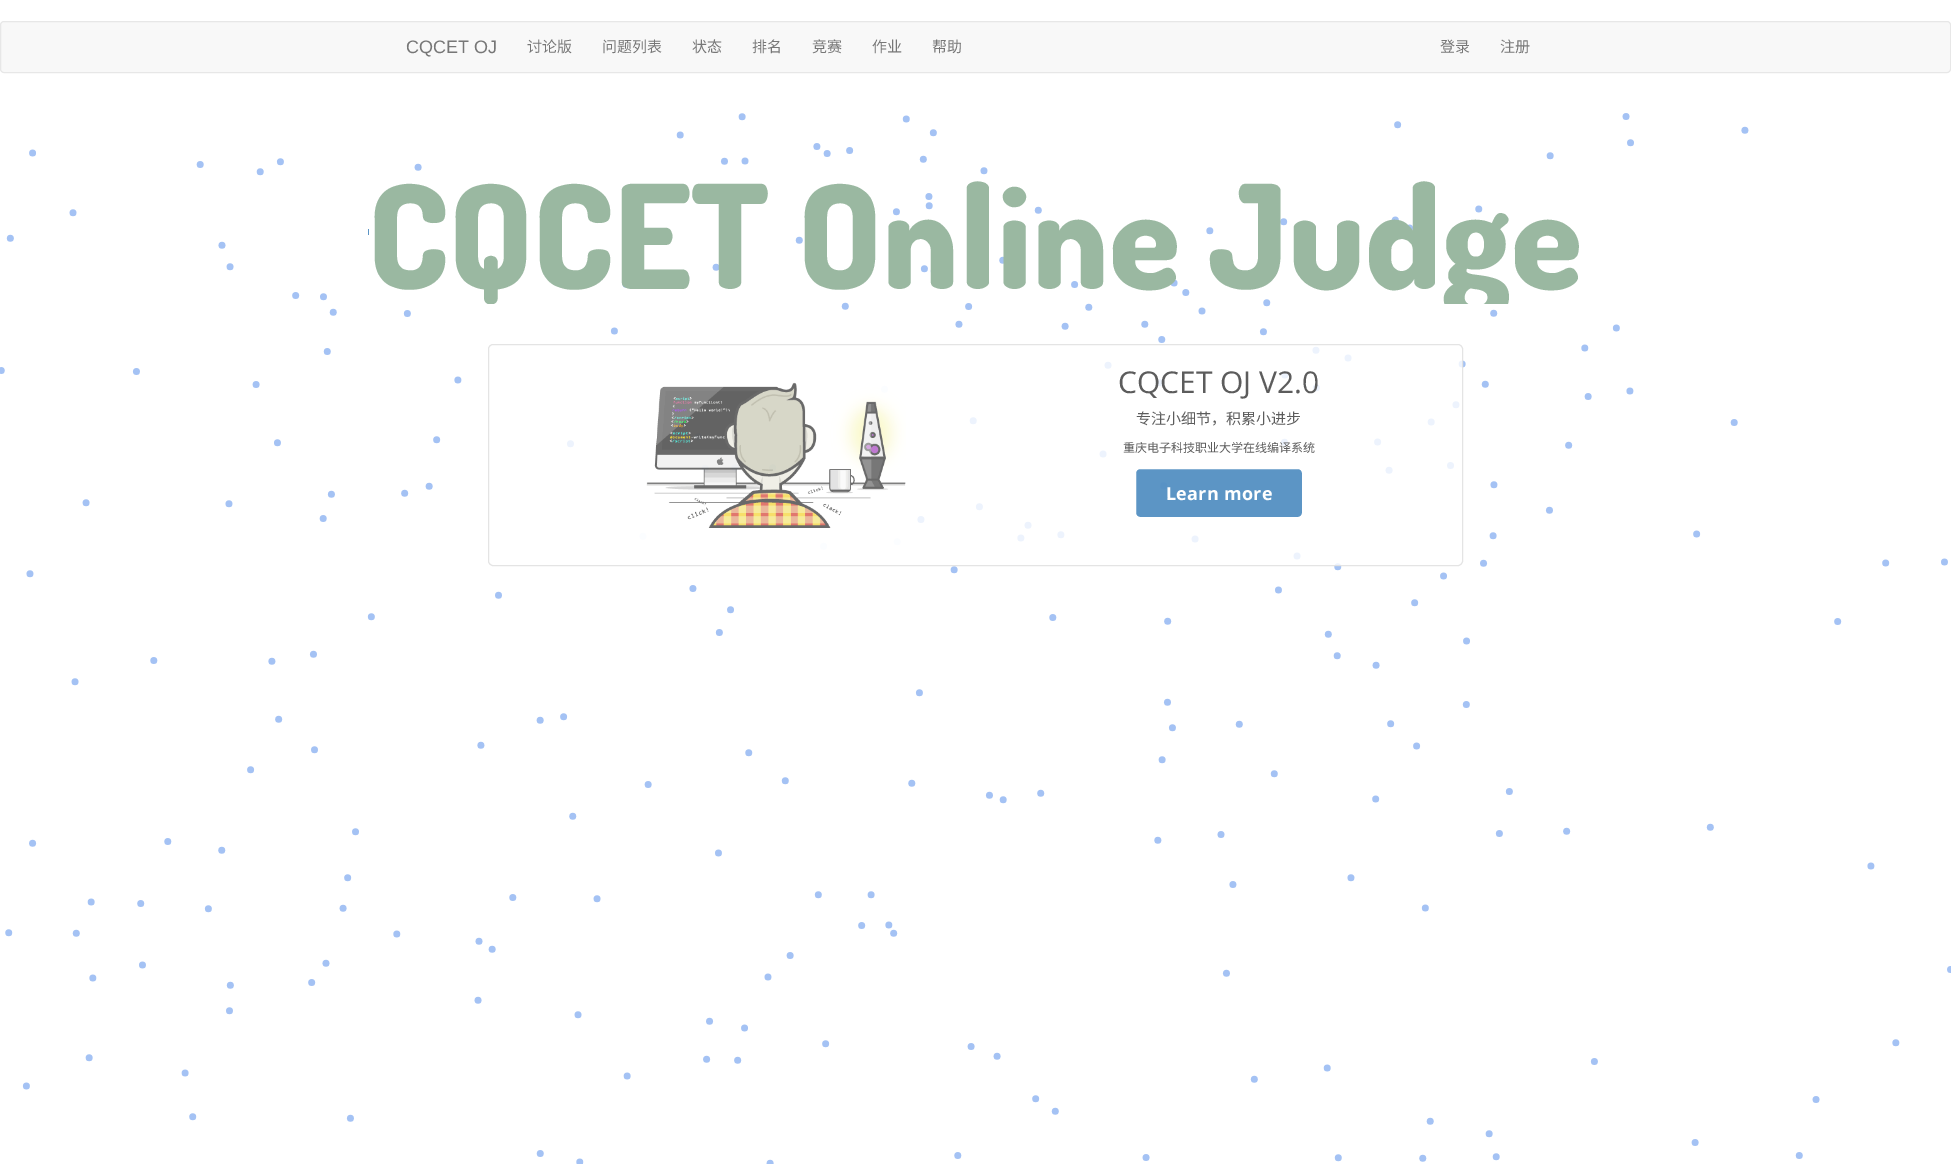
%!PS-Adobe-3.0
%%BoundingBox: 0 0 1951 1164
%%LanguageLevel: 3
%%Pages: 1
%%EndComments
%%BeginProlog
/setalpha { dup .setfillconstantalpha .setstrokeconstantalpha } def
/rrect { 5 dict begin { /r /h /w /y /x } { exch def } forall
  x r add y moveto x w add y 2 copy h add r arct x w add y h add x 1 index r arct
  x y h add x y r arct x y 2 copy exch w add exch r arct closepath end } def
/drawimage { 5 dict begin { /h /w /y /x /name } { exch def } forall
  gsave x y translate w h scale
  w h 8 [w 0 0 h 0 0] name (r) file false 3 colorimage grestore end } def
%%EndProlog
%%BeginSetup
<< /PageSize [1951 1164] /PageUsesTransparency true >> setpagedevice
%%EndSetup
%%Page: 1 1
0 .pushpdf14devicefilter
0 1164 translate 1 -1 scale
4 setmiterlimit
1 setgray
0 0 1951 1164 rectfill
0.973 setgray
0.5 21.5 1950 51 3.5 rrect gsave fill grestore
0.906 setgray
stroke
(images/1.raw) 0 113 1951 1051 drawimage
0.361 0.584 0.773 setrgbcolor
368 229 1 6 rectfill
0.8 setalpha
1 setgray
488 344 975 222 5 rrect fill
0.867 setgray
488.5 344.5 974 221 4.5 rrect stroke
1 setalpha
(images/2.raw) 639 382 267 168 drawimage
0.8 setalpha
0.2 0.478 0.718 setrgbcolor
1135 468 168 50 5 rrect fill
1 setalpha
1 setgray
2 setlinewidth
1135 468 168 50 5 rrect stroke
/LiberationSans-Regular [18 0 0 -18 0 0] selectfont
0.467 setgray
406 53 moveto (CQCET OJ) show
/NotoSansCJKSC-Regular [15 0 0 -15 0 0] selectfont
527 52 moveto (讨论版) show
602 52 moveto (问题列表) show
692 52 moveto (状态) show
752 52 moveto (排名) show
812 52 moveto (竞赛) show
872 52 moveto (作业) show
932 52 moveto (帮助) show
1440 52 moveto (登录) show
1500 52 moveto (注册) show
gsave
368 160 1215 144 rectclip
/Dosis-ExtraBold [144 0 0 -144 0 0] selectfont
0.604 0.722 0.631 setrgbcolor
368 289 moveto (CQCET Online Judge) show
grestore
/OpenSans-Regular [30 0 0 -30 0 0] selectfont
0.361 setgray
1118 393 moveto (CQCET OJ V2.0) show
/NotoSansCJKSC-Regular [15 0 0 -15 0 0] selectfont
1136 424 moveto (专注小细节，积累小进步) show
/NotoSansCJKSC-Regular [12 0 0 -12 0 0] selectfont
1123 452 moveto (重庆电子科技职业大学在线编译系统) show
/OpenSans-Bold [18 0 0 -18 0 0] selectfont
1 setgray
1166 500 moveto 0.25 0 (Learn more) ashow
.poppdf14devicefilter showpage
%%EOF
